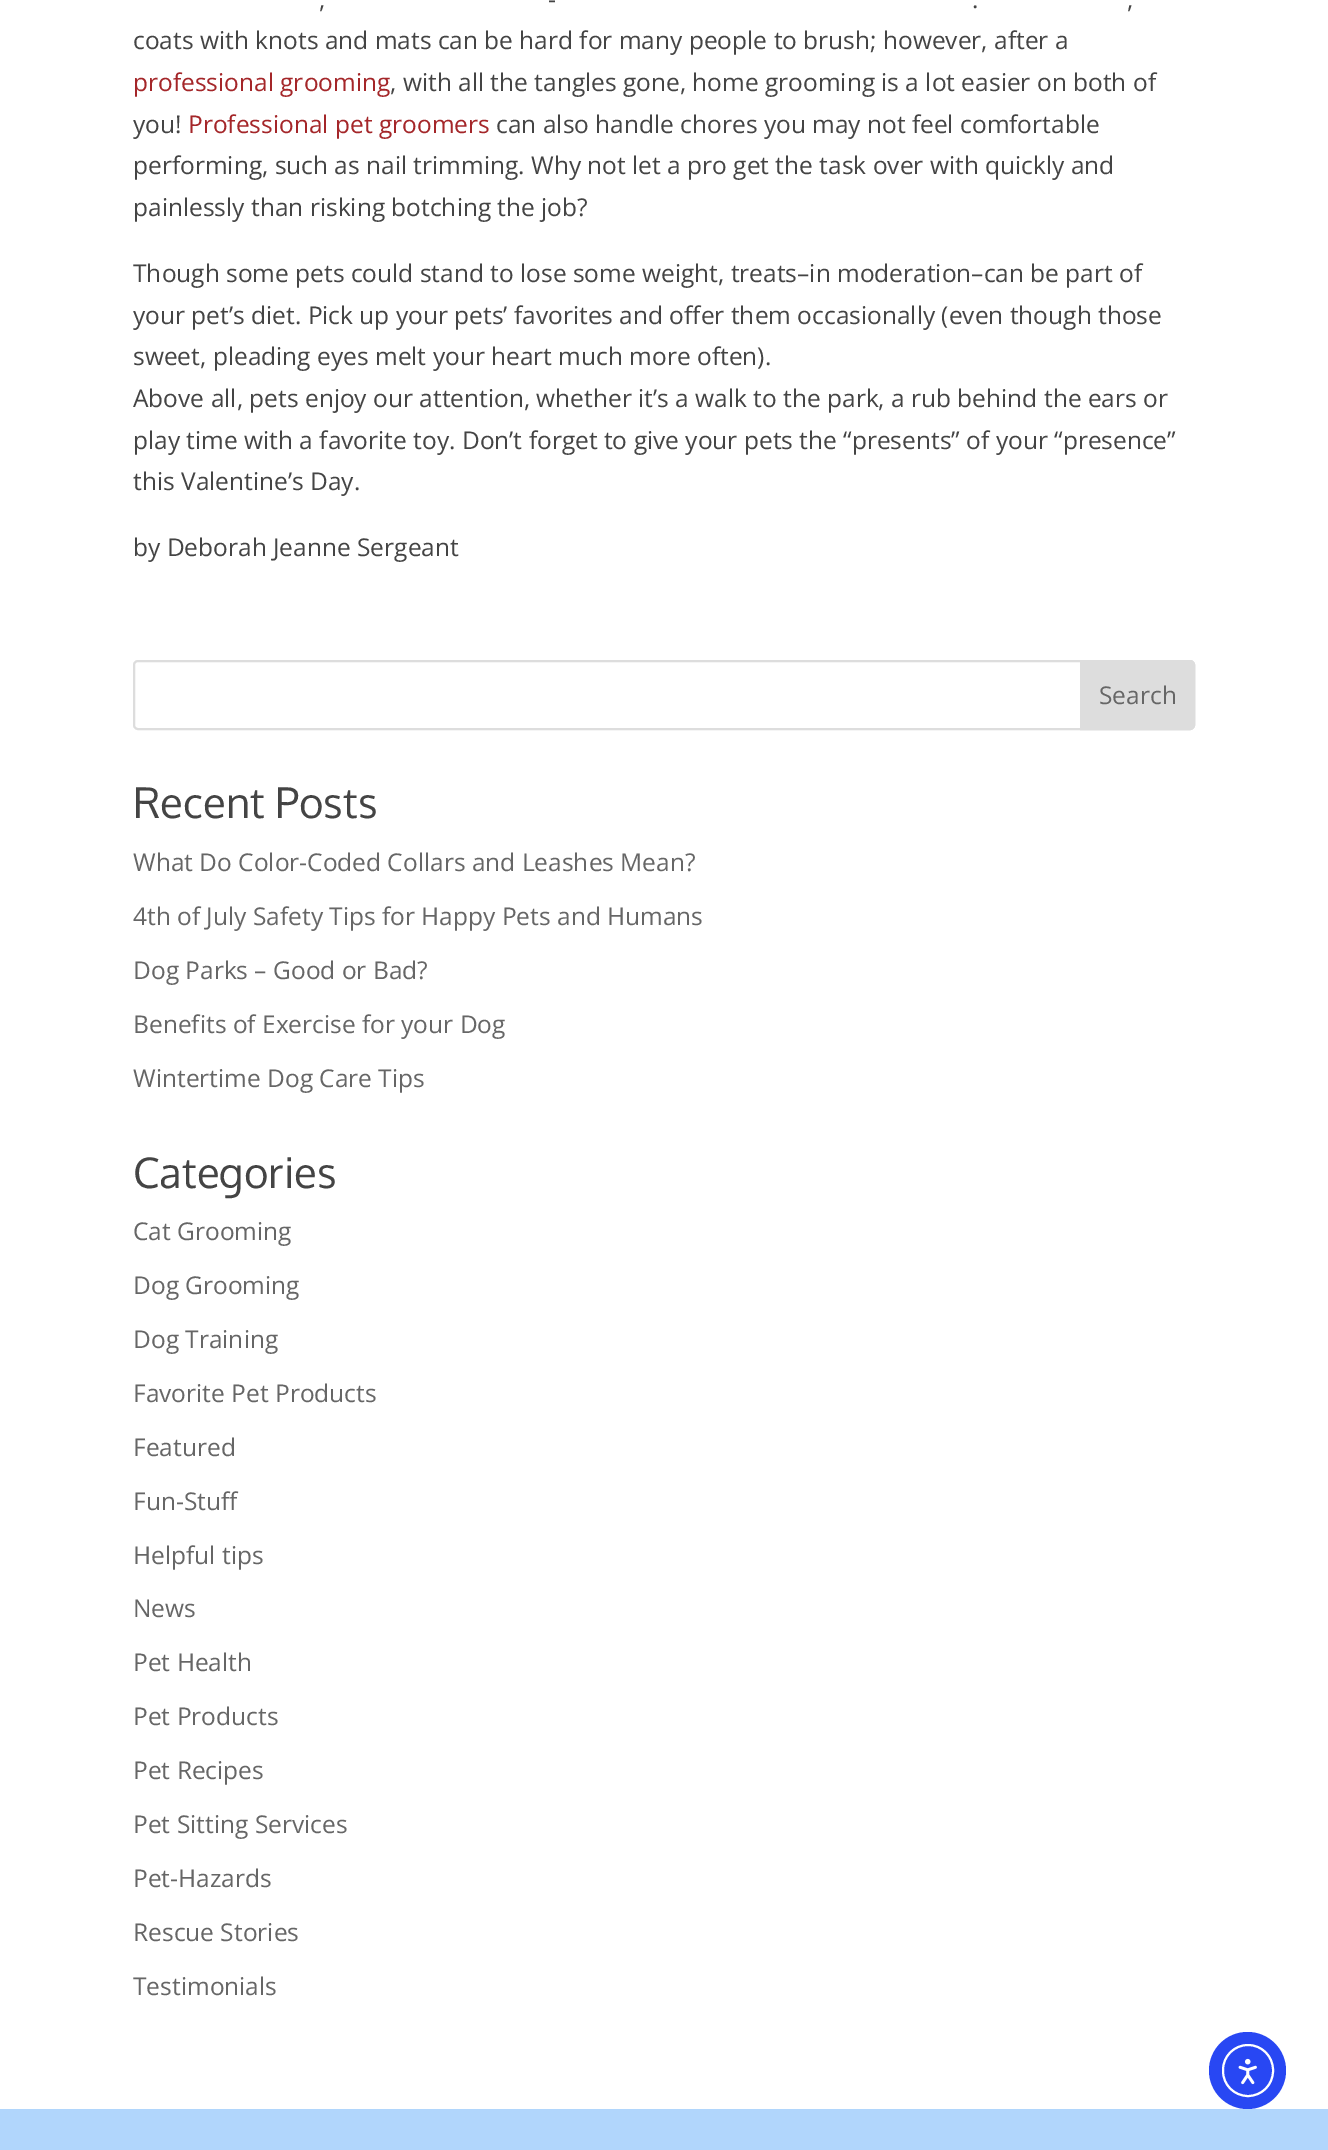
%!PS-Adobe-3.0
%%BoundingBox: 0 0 1328 2150
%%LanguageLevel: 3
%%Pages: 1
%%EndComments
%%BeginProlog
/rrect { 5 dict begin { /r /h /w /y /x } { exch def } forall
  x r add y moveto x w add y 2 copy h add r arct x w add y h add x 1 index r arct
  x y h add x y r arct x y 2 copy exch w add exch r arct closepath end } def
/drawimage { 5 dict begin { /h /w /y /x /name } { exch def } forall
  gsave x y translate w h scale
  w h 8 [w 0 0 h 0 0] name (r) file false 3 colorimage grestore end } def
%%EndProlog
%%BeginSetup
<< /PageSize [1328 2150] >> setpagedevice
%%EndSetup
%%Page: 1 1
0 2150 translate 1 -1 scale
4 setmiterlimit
1 setgray
0 0 1328 2150 rectfill
0.867 setgray
2 setlinewidth
134 661 1060 68 4 rrect stroke
newpath 1081 661 moveto 1190 661 lineto 1192 661 1194 663 1194 665 curveto 1194 725 lineto 1194 727 1192 729 1190 729 curveto 1081 729 lineto closepath gsave fill grestore
stroke
0.694 0.839 0.988 setrgbcolor
0 2109 1328 41 rectfill
0.157 0.278 0.953 setrgbcolor
newpath 1247.5 2070.5 38.5 0 360 arc closepath fill
1 setgray
1223 2045 50 51 25 rrect stroke
(images/1.raw) 1238 2058 19 27 drawimage
/OpenSans-Regular [24.5 0 0 -24.5 0 0] selectfont
0.267 setgray
548 8 moveto (-) show
319 8 moveto (,) show
972 8 moveto (.) show
1127 8 moveto (,) show
133 49 moveto (coats with knots and mats can be hard for many people to brush; however, after a) show
0.643 0.149 0.161 setrgbcolor
133 91 moveto (professional grooming) show
0.267 setgray
390 91 moveto (, with all the tangles gone, home grooming is a lot easier on both of) show
133 133 moveto (you!) show
0.643 0.149 0.161 setrgbcolor
188 133 moveto (Professional pet groomers) show
0.267 setgray
496 133 moveto (can also handle chores you may not feel comfortable) show
133 174 moveto (performing, such as nail trimming. Why not let a pro get the task over with quickly and) show
133 216 moveto (painlessly than risking botching the job?) show
133 282 moveto (Though some pets could stand to lose some weight, treats–in moderation–can be part of) show
133 324 moveto (your pet’s diet. Pick up your pets’ favorites and offer them occasionally \(even though those) show
133 365 moveto (sweet, pleading eyes melt your heart much more often\).) show
133 407 moveto (Above all, pets enjoy our attention, whether it’s a walk to the park, a rub behind the ears or) show
133 449 moveto (play time with a favorite toy. Don’t forget to give your pets the “presents” of your “presence”) show
133 490 moveto (this Valentine’s Day.) show
133 556 moveto (by Deborah Jeanne Sergeant) show
0.4 setgray
1099 704 moveto (Search) show
/Oxygen-Regular [42 0 0 -42 0 0] selectfont
0.267 setgray
133 818 moveto (Recent Posts) show
/OpenSans-Regular [24.5 0 0 -24.5 0 0] selectfont
0.4 setgray
133 871 moveto (What Do Color-Coded Collars and Leashes Mean?) show
133 925 moveto (4th of July Safety Tips for Happy Pets and Humans) show
133 979 moveto (Dog Parks – Good or Bad?) show
133 1033 moveto (Benefits of Exercise for your Dog) show
133 1087 moveto (Wintertime Dog Care Tips) show
/Oxygen-Regular [42 0 0 -42 0 0] selectfont
0.267 setgray
133 1188 moveto (Categories) show
/OpenSans-Regular [24.5 0 0 -24.5 0 0] selectfont
0.4 setgray
133 1240 moveto (Cat Grooming) show
133 1294 moveto (Dog Grooming) show
133 1348 moveto (Dog Training) show
133 1402 moveto (Favorite Pet Products) show
133 1456 moveto (Featured) show
133 1510 moveto (Fun-Stuff) show
133 1564 moveto (Helpful tips) show
133 1617 moveto (News) show
133 1671 moveto (Pet Health) show
133 1725 moveto (Pet Products) show
133 1779 moveto (Pet Recipes) show
133 1833 moveto (Pet Sitting Services) show
133 1887 moveto (Pet-Hazards) show
133 1941 moveto (Rescue Stories) show
133 1995 moveto (Testimonials) show
showpage
%%EOF
